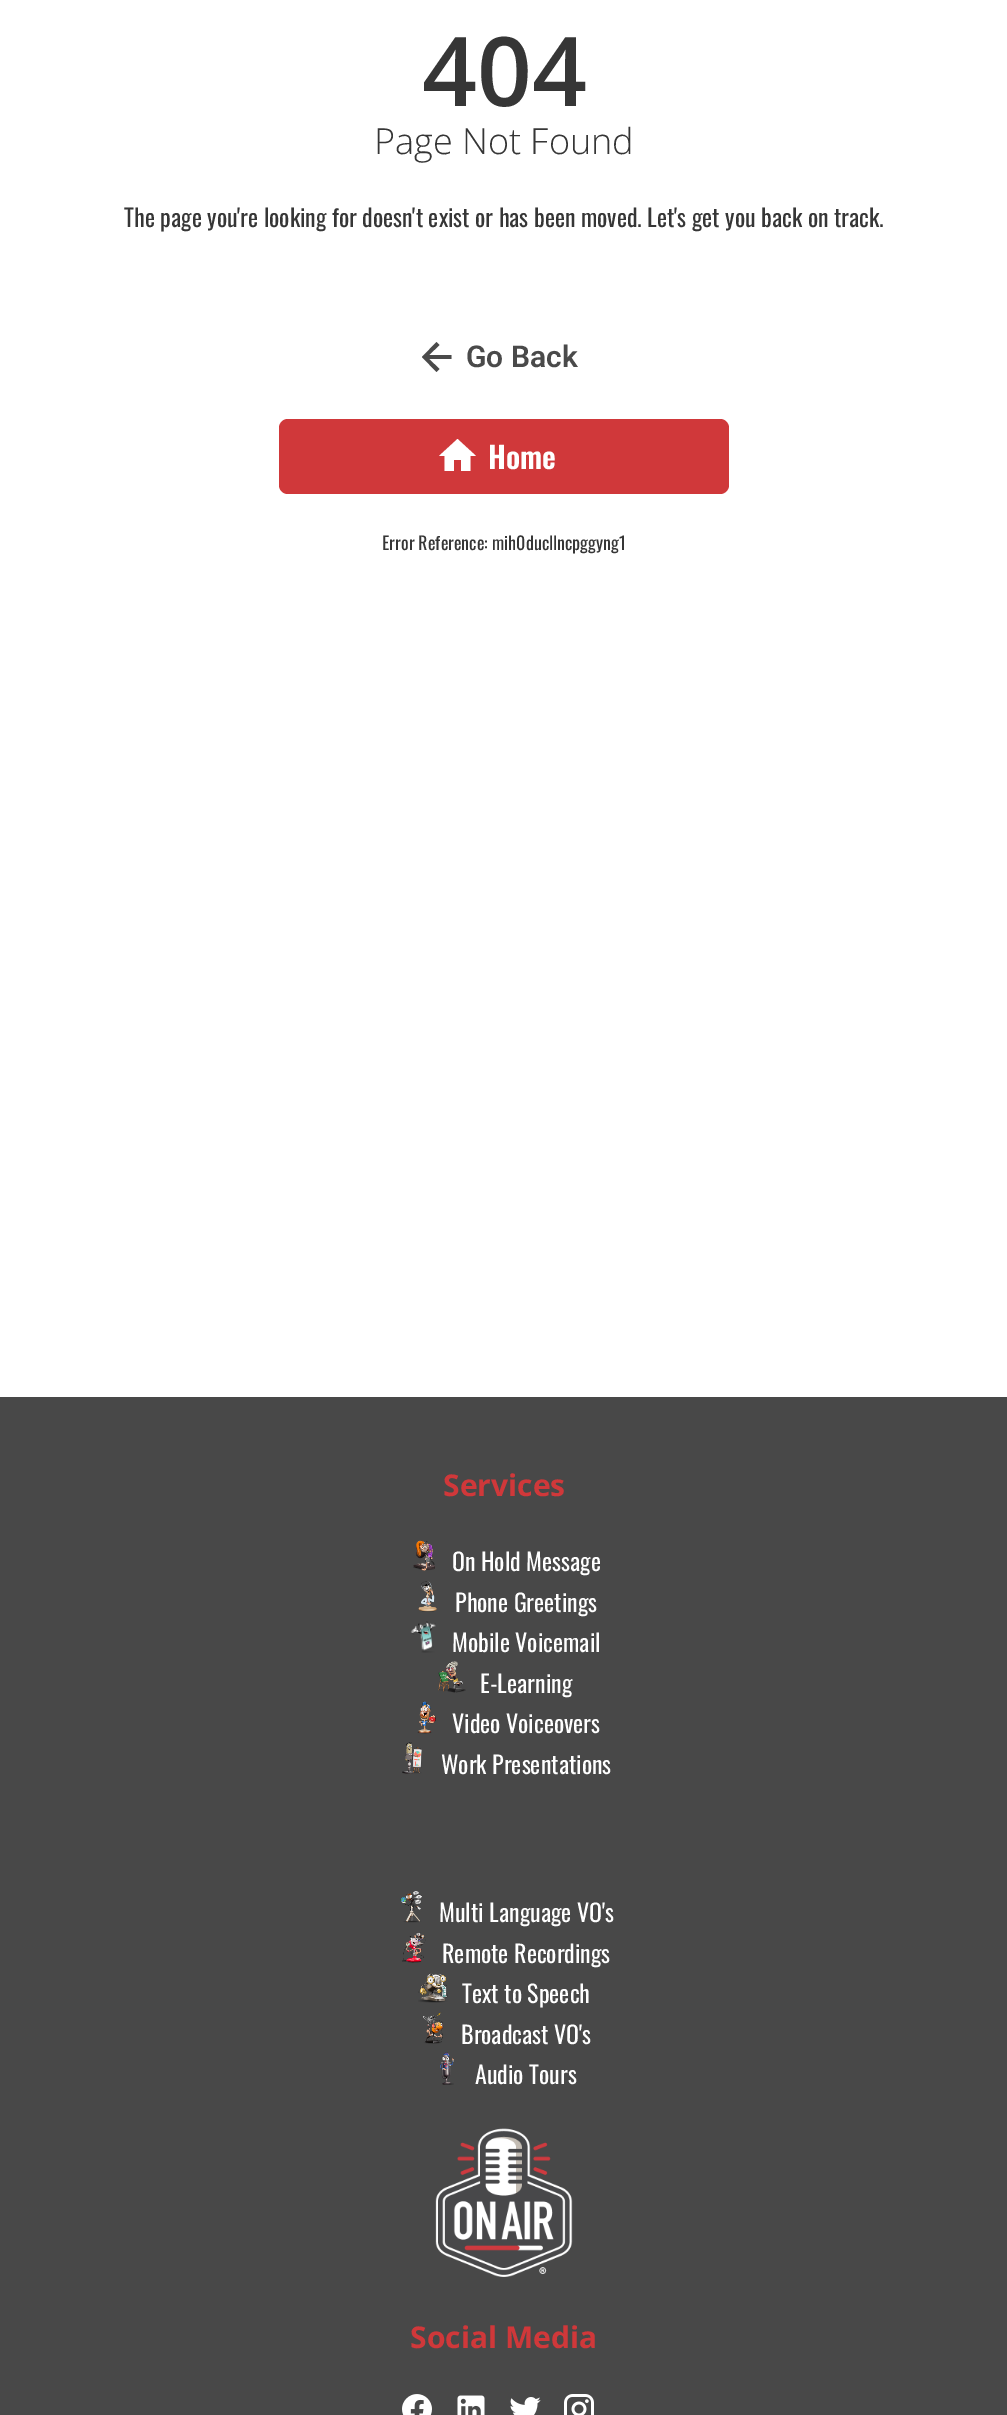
%!PS-Adobe-3.0
%%BoundingBox: 0 0 1007 2415
%%LanguageLevel: 3
%%Pages: 1
%%EndComments
%%BeginProlog
/rrect { 5 dict begin { /r /h /w /y /x } { exch def } forall
  x r add y moveto x w add y 2 copy h add r arct x w add y h add x 1 index r arct
  x y h add x y r arct x y 2 copy exch w add exch r arct closepath end } def
/drawimage { 5 dict begin { /h /w /y /x /name } { exch def } forall
  gsave x y translate w h scale
  w h 8 [w 0 0 h 0 0] name (r) file false 3 colorimage grestore end } def
%%EndProlog
%%BeginSetup
<< /PageSize [1007 2415] >> setpagedevice
%%EndSetup
%%Page: 1 1
0 2415 translate 1 -1 scale
4 setmiterlimit
1 setgray
0 0 1007 2415 rectfill
0.29 setgray
newpath 451.5 355 moveto 451.5 359 lineto 429 359 lineto 439.5 369 lineto 436.5 372 lineto 422 357 lineto 436.5 342 lineto 439.5 345 lineto 429 355 lineto closepath fill
0.816 0.22 0.227 setrgbcolor
279 419 450 75 9 rrect fill
1 setgray
newpath 454 471 moveto 454 460 lineto 461 460 lineto 461 471 lineto 470.5 471 lineto 470.5 456 lineto 476 456 lineto 457.5 439 lineto 439 456 lineto 444.5 456 lineto 444.5 471 lineto closepath fill
0.282 setgray
0 1397 1007 1018 rectfill
(images/1.raw) 413 1540 22 31 drawimage
(images/2.raw) 418 1581 19 31 drawimage
(images/3.raw) 410 1621 26 32 drawimage
(images/4.raw) 438 1661 28 32 drawimage
(images/5.raw) 417 1701 19 33 drawimage
(images/6.raw) 402 1742 20 32 drawimage
(images/7.raw) 400 1891 22 32 drawimage
(images/8.raw) 402 1932 24 31 drawimage
(images/9.raw) 418 1973 30 30 drawimage
(images/10.raw) 423 2012 21 32 drawimage
(images/11.raw) 440 2052 14 33 drawimage
(images/12.raw) 435 2128 138 149 drawimage
(images/13.raw) 402 2394 30 21 drawimage
(images/14.raw) 457 2395 28 20 drawimage
(images/15.raw) 510 2397 31 18 drawimage
(images/16.raw) 564 2394 30 21 drawimage
/OpenSans-SemiBold [96 0 0 -96 0 0] selectfont
0.212 setgray
422 106 moveto (404) show
/OpenSans-Light [36 0 0 -36 0 0] selectfont
374 154 moveto (Page Not Found) show
/Oswald-Regular [24 0 0 -24 0 0] selectfont
124 227 moveto (The page you're looking for doesn't exist or has been moved. Let's get you back on track.) show
/Roboto-SemiBold [30 0 0 -30 0 0] selectfont
0.29 setgray
466 367 moveto (Go Back) show
/Oswald-SemiBold [30 0 0 -30 0 0] selectfont
1 setgray
488 469 moveto (Home) show
/Oswald-Regular [18 0 0 -18 0 0] selectfont
0.212 setgray
382 550 moveto (Error Reference: mih0ducllncpggyng1) show
/OpenSans-Bold [30 0 0 -30 0 0] selectfont
0.816 0.22 0.227 setrgbcolor
443 1496 moveto (Services) show
/Oswald-Regular [24 0 0 -24 0 0] selectfont
1 setgray
452 1571 moveto (On Hold Message) show
455 1612 moveto (Phone Greetings) show
452 1652 moveto (Mobile Voicemail) show
480 1693 moveto (E-Learning) show
452 1733 moveto (Video Voiceovers) show
441 1774 moveto (Work Presentations) show
439 1922 moveto (Multi Language VO's) show
442 1963 moveto (Remote Recordings) show
462 2003 moveto (Text to Speech) show
461 2044 moveto (Broadcast VO's) show
475 2084 moveto (Audio Tours) show
/OpenSans-Bold [30 0 0 -30 0 0] selectfont
0.816 0.22 0.227 setrgbcolor
410 2348 moveto (Social Media) show
showpage
%%EOF
